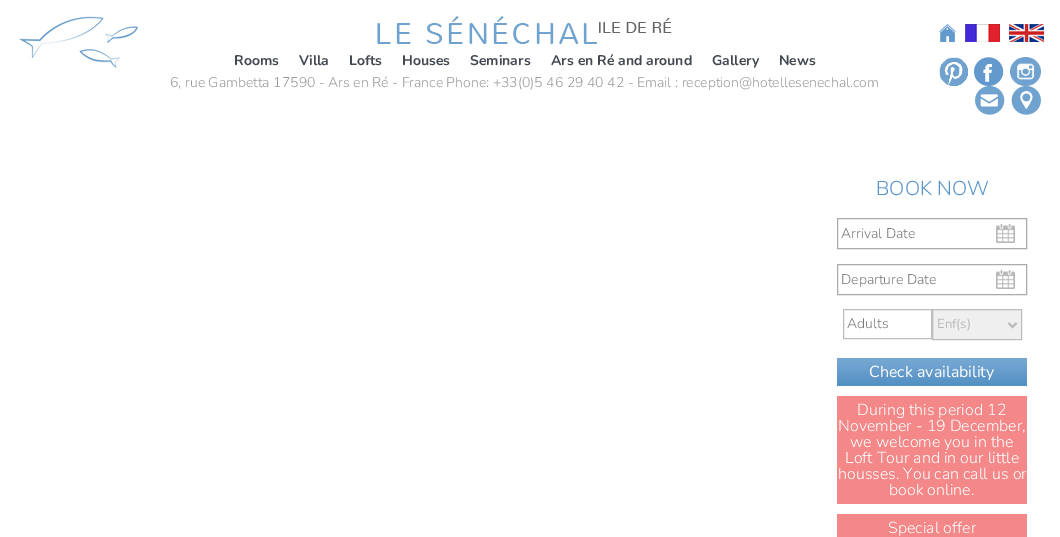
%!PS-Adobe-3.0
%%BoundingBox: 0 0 1060 537
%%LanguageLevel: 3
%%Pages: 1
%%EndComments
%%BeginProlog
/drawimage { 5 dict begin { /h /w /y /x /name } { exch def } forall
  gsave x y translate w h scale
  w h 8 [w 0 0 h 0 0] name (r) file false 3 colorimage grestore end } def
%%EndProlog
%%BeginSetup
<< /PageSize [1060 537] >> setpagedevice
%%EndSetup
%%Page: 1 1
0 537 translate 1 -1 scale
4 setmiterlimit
1 setgray
0 0 1060 537 rectfill
(images/1.raw) 18 16 120 52 drawimage
(images/2.raw) 377 16 295 28 drawimage
(images/3.raw) 939 24 17 18 drawimage
(images/4.raw) 965 24 35 18 drawimage
(images/5.raw) 1009 24 35 18 drawimage
(images/6.raw) 939 57 29 29 drawimage
(images/7.raw) 974 57 30 29 drawimage
(images/8.raw) 1010 57 31 29 drawimage
(images/9.raw) 975 86 30 29 drawimage
(images/10.raw) 1011 86 30 29 drawimage
(images/11.raw) 996 224 19 19 drawimage
0.667 setgray
837.5 218.5 189 30 rectstroke
(images/11.raw) 996 270 19 19 drawimage
837.5 264.5 189 30 rectstroke
0.749 0.737 0.737 setrgbcolor
843.5 309.5 88 29 rectstroke
0.937 setgray
newpath 932.5 309.5 moveto 1021.5 309.5 lineto 1021.5 339.5 lineto 932.5 339.5 lineto closepath gsave fill grestore
0.749 0.737 0.737 setrgbcolor
stroke
0.729 setgray
2 setlinewidth
newpath 1008.5 323 moveto 1012.5 327 lineto 1016.5 323 lineto stroke
(images/12.raw) 837 358 190 28 drawimage
0.957 0.529 0.529 setrgbcolor
837 396 190 108 rectfill
837 514 190 23 rectfill
/Nunito-Bold [14 0 0 -14 0 0] selectfont
0.263 0.286 0.318 setrgbcolor
234 65 moveto (Rooms) show
299 65 moveto (Villa) show
349 65 moveto (Lofts) show
402 65 moveto (Houses) show
470 65 moveto (Seminars) show
551 65 moveto (Ars en Ré and around) show
712 65 moveto (Gallery) show
779 65 moveto (News) show
/Nunito-Light [14 0 0 -14 0 0] selectfont
0.6 setgray
170 87 moveto (6, rue Gambetta 17590 - Ars en Ré - France Phone: +33\(0\)5 46 29 40 42 - Email : reception@hotellesenechal.com) show
/Nunito-Light [20 0 0 -20 0 0] selectfont
0.349 0.58 0.776 setrgbcolor
876 195 moveto (BOOK NOW) show
/Nunito-Light [14 0 0 -14 0 0] selectfont
0.467 setgray
841 238 moveto (Arrival Date) show
841 284 moveto (Departure Date) show
847 328 moveto (Adults) show
/Nunito-Regular [13 0 0 -13 0 0] selectfont
0.729 setgray
937 328 moveto (Enf\(s\)) show
/Nunito-Regular [16 0 0 -16 0 0] selectfont
1 setgray
869 377 moveto (Check availability) show
/Nunito-Light [16 0 0 -16 0 0] selectfont
857 415 moveto (During this period 12) show
838 431 moveto (November - 19 December,) show
850 447 moveto (we welcome you in the) show
845 463 moveto (Loft Tour and in our little) show
838 479 moveto (housses. You can call us or) show
889 495 moveto (book online.) show
888 533 moveto (Special offer) show
showpage
%%EOF
